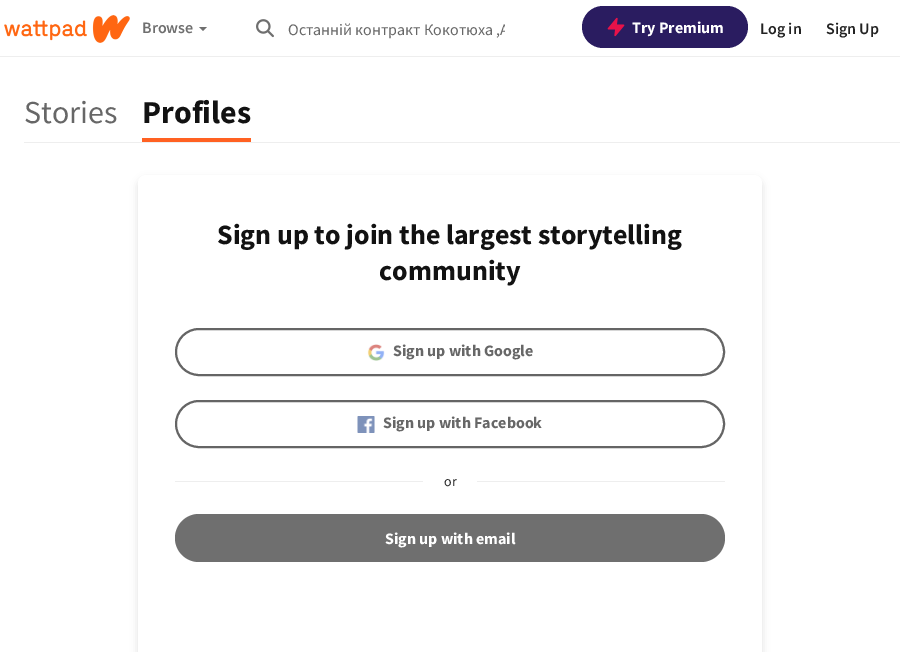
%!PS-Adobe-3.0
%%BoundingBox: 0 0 900 652
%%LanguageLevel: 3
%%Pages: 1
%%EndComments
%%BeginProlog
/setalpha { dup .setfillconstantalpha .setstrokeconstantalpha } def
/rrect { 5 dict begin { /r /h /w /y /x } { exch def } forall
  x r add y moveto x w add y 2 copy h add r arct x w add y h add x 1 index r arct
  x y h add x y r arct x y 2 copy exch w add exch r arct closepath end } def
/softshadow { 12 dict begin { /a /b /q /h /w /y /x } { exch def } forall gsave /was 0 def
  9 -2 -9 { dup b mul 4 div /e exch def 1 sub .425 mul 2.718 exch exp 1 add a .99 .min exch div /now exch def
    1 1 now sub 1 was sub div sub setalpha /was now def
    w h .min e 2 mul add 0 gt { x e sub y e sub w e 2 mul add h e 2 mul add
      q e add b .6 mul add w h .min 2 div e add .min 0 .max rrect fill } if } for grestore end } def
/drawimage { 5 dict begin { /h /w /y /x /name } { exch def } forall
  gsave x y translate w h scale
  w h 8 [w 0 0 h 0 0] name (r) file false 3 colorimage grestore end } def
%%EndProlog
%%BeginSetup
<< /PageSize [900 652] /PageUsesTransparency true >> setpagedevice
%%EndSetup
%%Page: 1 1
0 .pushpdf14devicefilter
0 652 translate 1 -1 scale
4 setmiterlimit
1 setgray
0 0 900 652 rectfill
0.933 setgray
0 56 900 1 rectfill
(images/1.raw) 4 15 126 28 drawimage
0.435 setgray
newpath 199 27 moveto 207 27 lineto 203 31 lineto closepath fill
(images/2.raw) 256 19 18 19 drawimage
0.165 0.11 0.376 setrgbcolor
582 6 166 42 21 rrect fill
(images/3.raw) 607 17 18 20 drawimage
0.933 setgray
24 142 876 1 rectfill
1 0.38 0.133 setrgbcolor
142 138 109 4 rectfill
0.071 setgray
138 179 624 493 8 4 0.12 softshadow
1 setgray
138 175 624 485 8 rrect fill
0.396 setgray
2 setlinewidth
176 329 548 46 23 rrect stroke
(images/4.raw) 367 344 18 17 drawimage
176 401 548 46 23 rrect stroke
(images/5.raw) 357 416 18 17 drawimage
0.933 setgray
175 481 248 1 rectfill
477 481 248 1 rectfill
0.435 setgray
175 514 550 48 24 rrect fill
/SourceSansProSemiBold-SemiBold [16 0 0 -16 0 0] selectfont
142 33 moveto (Browse) show
gsave
288 17 217 24 rectclip
/SourceSansPro-Regular [16 0 0 -16 0 0] selectfont
0.404 setgray
288 35 moveto (Останній контракт Кокотюха ,А) show
grestore
/SourceSansPro-Bold [16 0 0 -16 0 0] selectfont
1 setgray
632 33 moveto (Try Premium) show
/SourceSansProSemiBold-SemiBold [16 0 0 -16 0 0] selectfont
0.133 setgray
760 34 moveto (Log in) show
826 34 moveto (Sign Up) show
/SourceSansPro-Regular [32 0 0 -32 0 0] selectfont
0.404 setgray
24 123 moveto (Stories) show
/SourceSansPro-Bold [32 0 0 -32 0 0] selectfont
0.071 setgray
142 123 moveto (Profiles) show
/SourceSansPro-Bold [28 0 0 -28 0 0] selectfont
217 244 moveto (Sign up to join the largest storytelling) show
379 280 moveto (community) show
/SourceSansPro-Bold [16 0 0 -16 0 0] selectfont
0.404 setgray
393 356 moveto (Sign up with Google) show
383 428 moveto (Sign up with Facebook) show
/SourceSansPro-Regular [14 0 0 -14 0 0] selectfont
0.133 setgray
444 486 moveto (or) show
/SourceSansPro-Bold [16 0 0 -16 0 0] selectfont
1 setgray
385 544 moveto (Sign up with email) show
.poppdf14devicefilter showpage
%%EOF
